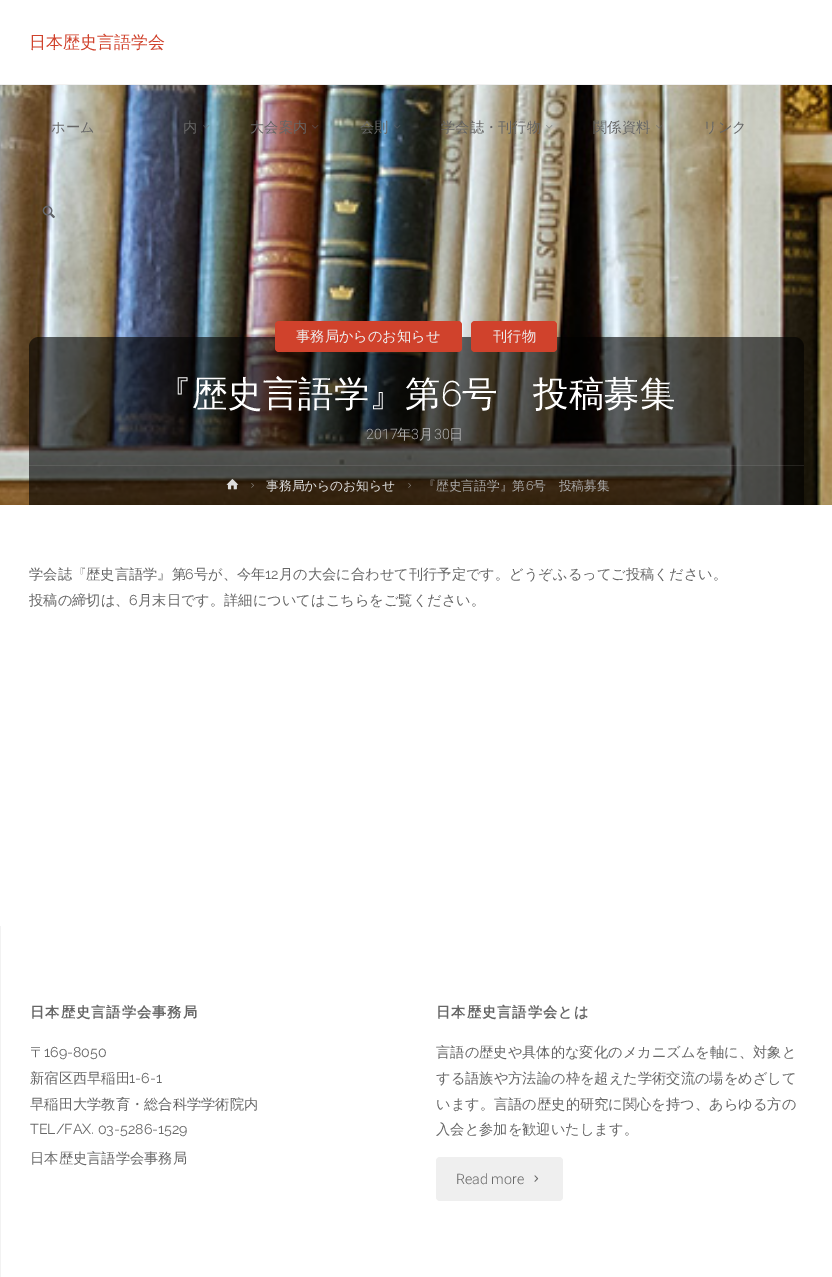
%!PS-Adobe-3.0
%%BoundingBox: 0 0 832 1277
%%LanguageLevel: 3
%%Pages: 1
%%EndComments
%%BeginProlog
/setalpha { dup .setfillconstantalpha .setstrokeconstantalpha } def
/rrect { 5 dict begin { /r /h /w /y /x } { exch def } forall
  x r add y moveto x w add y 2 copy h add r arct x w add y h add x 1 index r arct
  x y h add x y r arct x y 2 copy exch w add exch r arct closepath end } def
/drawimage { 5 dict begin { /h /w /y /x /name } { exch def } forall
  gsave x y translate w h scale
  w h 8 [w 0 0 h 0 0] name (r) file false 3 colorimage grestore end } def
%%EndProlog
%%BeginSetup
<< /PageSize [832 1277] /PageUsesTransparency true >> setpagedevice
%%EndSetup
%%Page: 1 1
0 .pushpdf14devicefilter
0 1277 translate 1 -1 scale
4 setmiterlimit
1 setgray
0 0 832 1277 rectfill
0.949 setgray
0 84 832 1 rectfill
(images/7.raw) 0 85 832 420 drawimage
(images/1.raw) 203 125 7 4 drawimage
(images/2.raw) 312 125 7 4 drawimage
(images/3.raw) 394 125 7 4 drawimage
(images/4.raw) 546 125 7 4 drawimage
(images/5.raw) 656 125 6 4 drawimage
(images/6.raw) 42 205 13 14 drawimage
0.6 setalpha
0 setgray
newpath 39 337 moveto 794 337 lineto 799.5 337 804 341.5 804 347 curveto 804 505 lineto 29 505 lineto 29 347 lineto 29 341.5 33.5 337 39 337 curveto closepath fill
1 setalpha
0.816 0.259 0.173 setrgbcolor
275 321 187 31 4 rrect fill
471 321 86 31 4 rrect fill
0.05 setalpha
0 setgray
29 465 753 40 rectfill
0.1 setalpha
1 setgray
29 465 775 1 rectfill
1 setalpha
(images/8.raw) 226 479 13 11 drawimage
(images/9.raw) 251 483 3 5 drawimage
(images/10.raw) 408 483 3 5 drawimage
0.949 setgray
0 926 1 351 rectfill
0.937 setgray
436 1157 127 44 4 rrect fill
(images/11.raw) 534 1175 5 7 drawimage
/WenQuanYiZenHei-Medium [17 0 0 -17 0 0] selectfont
0.816 0.259 0.173 setrgbcolor
29 48 moveto (日本歴史言語学会) show
/WenQuanYiZenHei-Medium [14.25 0 0 -14.25 0 0] selectfont
0.4 setgray
51 132 moveto (ホーム) show
183 132 moveto (内) show
250 132 moveto (大会案内) show
360 132 moveto (会則) show
441 132 moveto (学会誌・刊行物) show
593 132 moveto (関係資料) show
703 132 moveto (リンク) show
0.933 setgray
296 341 moveto (事務局からのお知らせ) show
493 341 moveto (刊行物) show
/Roboto-Light [14.25 0 0 -14.25 0 0] selectfont
0.671 setgray
366 439 moveto (2017) show
/WenQuanYiZenHei-Medium [14.25 0 0 -14.25 0 0] selectfont
397 439 moveto (年) show
/Roboto-Light [14.25 0 0 -14.25 0 0] selectfont
411 439 moveto (3) show
/WenQuanYiZenHei-Medium [14.25 0 0 -14.25 0 0] selectfont
419 439 moveto (月) show
/Roboto-Light [14.25 0 0 -14.25 0 0] selectfont
434 439 moveto (30) show
/WenQuanYiZenHei-Medium [14.25 0 0 -14.25 0 0] selectfont
449 439 moveto (日) show
/WenQuanYiZenHei-Medium [35.5 0 0 -35.5 0 0] selectfont
1 setgray
156 406 moveto (『歴史言語学』第) show
/Raleway-Light [35.5 0 0 -35.5 0 0] selectfont
441 406 moveto (6) show
/WenQuanYiZenHei-Medium [35.5 0 0 -35.5 0 0] selectfont
462 406 moveto (号　投稿募集) show
/WenQuanYiZenHei-Medium [12.75 0 0 -12.75 0 0] selectfont
0.867 setgray
266 490 moveto (事務局からのお知らせ) show
0.671 setgray
423 490 moveto (『歴史言語学』第) show
/Raleway-Regular [12.75 0 0 -12.75 0 0] selectfont
526 490 moveto (6) show
/WenQuanYiZenHei-Medium [12.75 0 0 -12.75 0 0] selectfont
533 490 moveto (号　投稿募集) show
/WenQuanYiZenHei-Medium [14.25 0 0 -14.25 0 0] selectfont
0.4 setgray
29 579 moveto (学会誌『歴史言語学』第) show
/Raleway-Regular [14.25 0 0 -14.25 0 0] selectfont
185 579 moveto (6) show
/WenQuanYiZenHei-Medium [14.25 0 0 -14.25 0 0] selectfont
194 579 moveto (号が、今年) show
/Raleway-Regular [14.25 0 0 -14.25 0 0] selectfont
265 579 moveto (12) show
/WenQuanYiZenHei-Medium [14.25 0 0 -14.25 0 0] selectfont
279 579 moveto (月の大会に合わせて刊行予定です。どうぞふるってご投稿ください。) show
gsave
29 562 775 66 rectclip
29 605 moveto (投稿の締切は、) show
grestore
/Raleway-Regular [14.25 0 0 -14.25 0 0] selectfont
129 605 moveto (6) show
/WenQuanYiZenHei-Medium [14.25 0 0 -14.25 0 0] selectfont
138 605 moveto (月末日です。詳細についてはこちらをご覧ください。) show
/WenQuanYiZenHei-Bold [14.25 0 0 -14.25 0 0] selectfont
30 1017 moveto 1 0 (日本歴史言語学会事務局) ashow
/WenQuanYiZenHei-Medium [14.25 0 0 -14.25 0 0] selectfont
30 1057 moveto (〒) show
/Raleway-Regular [14.25 0 0 -14.25 0 0] selectfont
44 1057 moveto (169-8050) show
/WenQuanYiZenHei-Medium [14.25 0 0 -14.25 0 0] selectfont
30 1083 moveto (新宿区西早稲田) show
/Raleway-Regular [14.25 0 0 -14.25 0 0] selectfont
129 1083 moveto (1-6-1) show
/WenQuanYiZenHei-Medium [14.25 0 0 -14.25 0 0] selectfont
30 1109 moveto (早稲田大学教育・総合科学学術院内) show
/Raleway-Regular [14.25 0 0 -14.25 0 0] selectfont
30 1134 moveto (TEL/FAX. 03-5286-1529) show
/WenQuanYiZenHei-Medium [14.25 0 0 -14.25 0 0] selectfont
30 1163 moveto (日本歴史言語学会事務局) show
/WenQuanYiZenHei-Bold [14.25 0 0 -14.25 0 0] selectfont
436 1017 moveto 1 0 (日本歴史言語学会とは) ashow
/WenQuanYiZenHei-Medium [14.25 0 0 -14.25 0 0] selectfont
436 1057 moveto (言語の歴史や具体的な変化のメカニズムを軸に、対象と) show
436 1083 moveto (する語族や方法論の枠を超えた学術交流の場をめざして) show
436 1109 moveto (います。言語の歴史的研究に関心を持つ、あらゆる方の) show
436 1134 moveto (入会と参加を歓迎いたします。) show
/Roboto-Light [14.25 0 0 -14.25 0 0] selectfont
456 1184 moveto (Read more) show
.poppdf14devicefilter showpage
%%EOF
